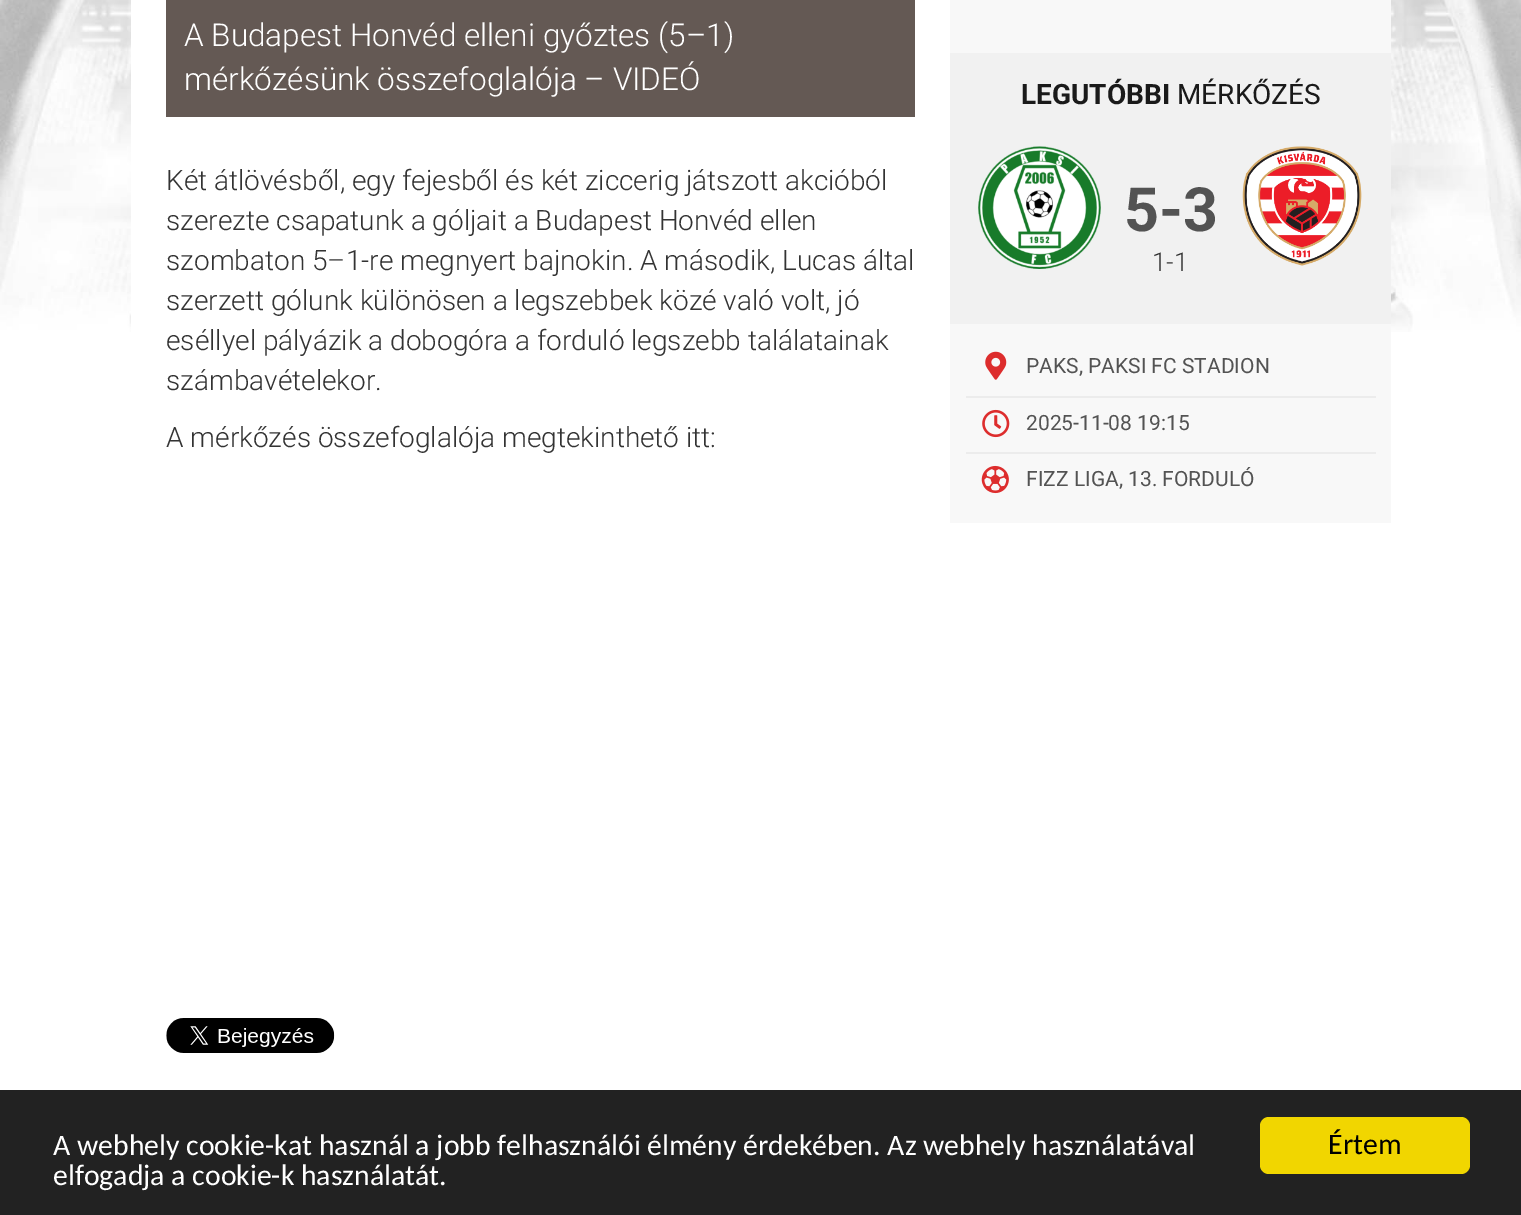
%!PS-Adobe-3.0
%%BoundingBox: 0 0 1521 1215
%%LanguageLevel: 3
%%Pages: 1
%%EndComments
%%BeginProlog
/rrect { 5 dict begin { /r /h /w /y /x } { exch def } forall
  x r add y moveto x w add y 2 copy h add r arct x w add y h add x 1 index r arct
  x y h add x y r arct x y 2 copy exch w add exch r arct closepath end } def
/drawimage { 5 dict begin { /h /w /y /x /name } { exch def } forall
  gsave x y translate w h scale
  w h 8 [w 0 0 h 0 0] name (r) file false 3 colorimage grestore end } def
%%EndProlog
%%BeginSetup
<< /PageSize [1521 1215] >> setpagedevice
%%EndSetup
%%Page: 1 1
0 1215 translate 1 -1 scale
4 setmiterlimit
1 setgray
0 0 1521 1215 rectfill
(images/1.raw) 0 0 1521 332 drawimage
131 0 1260 332 rectfill
0.392 0.349 0.329 setrgbcolor
166 0 749 117 rectfill
(images/2.raw) 166 1018 169 35 drawimage
0.945 setgray
950 53 441 271 rectfill
0.973 setgray
950 0 441 53 rectfill
(images/3.raw) 978 146 123 123 drawimage
(images/4.raw) 1242 146 120 120 drawimage
950 324 441 199 rectfill
0.925 setgray
966 396 410 2 rectfill
(images/5.raw) 985 351 22 29 drawimage
966 452 410 2 rectfill
(images/6.raw) 982 409 28 29 drawimage
(images/7.raw) 981 465 28 29 drawimage
0.133 setgray
0 1090 1521 125 rectfill
0.945 0.839 0 setrgbcolor
1260 1117 210 57 9 rrect fill
/Roboto-Light [31.5 0 0 -31.5 0 0] selectfont
1 setgray
184 46 moveto (A Budapest Honvéd elleni győztes \(5–1\)) show
184 90 moveto (mérkőzésünk összefoglalója – VIDEÓ) show
/Roboto-Light [28 0 0 -28 0 0] selectfont
0.2 setgray
166 190 moveto (Két átlövésből, egy fejesből és két ziccerig játszott akcióból) show
166 230 moveto (szerezte csapatunk a góljait a Budapest Honvéd ellen) show
166 270 moveto (szombaton 5–1-re megnyert bajnokin. A második, Lucas által) show
166 310 moveto (szerzett gólunk különösen a legszebbek közé való volt, jó) show
166 350 moveto (eséllyel pályázik a dobogóra a forduló legszebb találatainak) show
166 390 moveto (számbavételekor.) show
166 447 moveto (A mérkőzés összefoglalója megtekinthető itt:) show
/Roboto-Bold [28 0 0 -28 0 0] selectfont
0.102 setgray
1021 104 moveto (LEGUTÓBBI) show
/Roboto-Regular [28 0 0 -28 0 0] selectfont
1177 104 moveto (MÉRKŐZÉS) show
/Roboto-Bold [61 0 0 -61 0 0] selectfont
0.325 setgray
1124 231 moveto (5-3) show
/Roboto-Light [26 0 0 -26 0 0] selectfont
0.2 setgray
1152 271 moveto (1-1) show
/Roboto-Regular [21 0 0 -21 0 0] selectfont
0.325 setgray
1026 373 moveto (PAKS, PAKSI FC STADION) show
1026 430 moveto (2025-11-08 19:15) show
1026 486 moveto (FIZZ LIGA, 13. FORDULÓ) show
/Carlito-Regular [29.75 0 0 -29.75 0 0] selectfont
1 setgray
53 1155 moveto (A webhely cookie-kat használ a jobb felhasználói élmény érdekében. Az webhely használatával) show
53 1185 moveto (elfogadja a cookie-k használatát.) show
0 setgray
1328 1154 moveto (Értem) show
showpage
%%EOF
